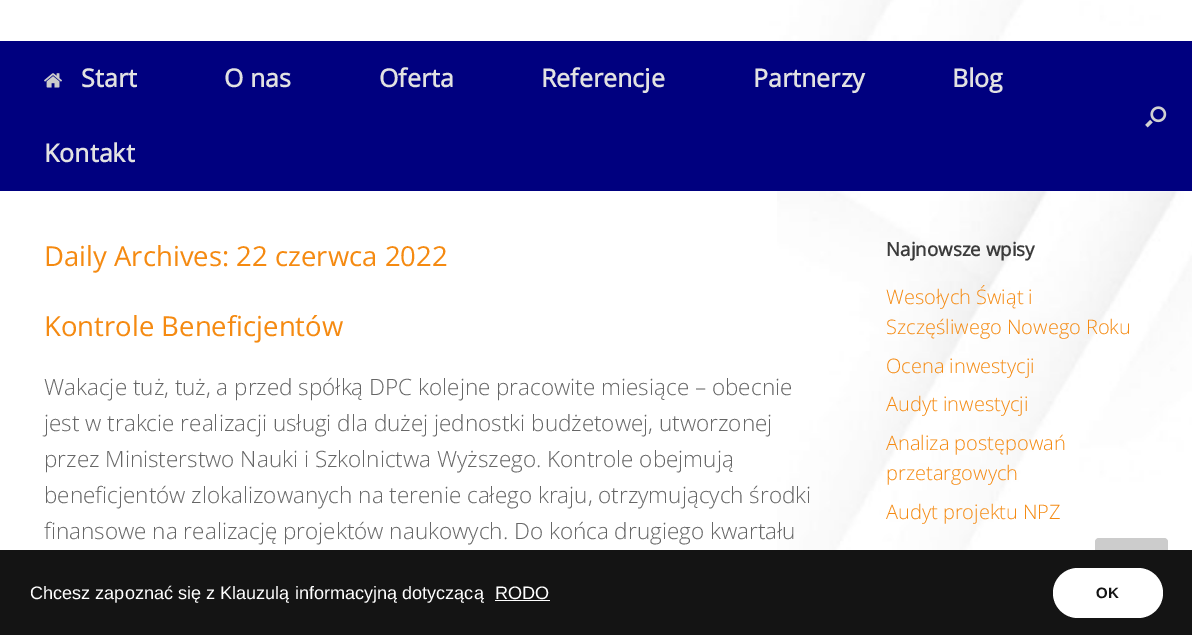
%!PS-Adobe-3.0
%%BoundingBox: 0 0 1192 635
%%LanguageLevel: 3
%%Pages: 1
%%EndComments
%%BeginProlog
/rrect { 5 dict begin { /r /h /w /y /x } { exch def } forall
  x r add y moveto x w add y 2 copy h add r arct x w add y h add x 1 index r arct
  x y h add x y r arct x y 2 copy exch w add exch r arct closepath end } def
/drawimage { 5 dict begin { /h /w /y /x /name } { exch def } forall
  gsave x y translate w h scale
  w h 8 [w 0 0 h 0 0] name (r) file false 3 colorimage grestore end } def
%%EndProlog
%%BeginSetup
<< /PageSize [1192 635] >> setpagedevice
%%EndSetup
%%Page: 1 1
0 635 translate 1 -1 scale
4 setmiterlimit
1 setgray
0 0 1192 635 rectfill
(images/1.raw) 0 0 1192 41 drawimage
0 0 0.498 setrgbcolor
0 41 1192 150 rectfill
(images/2.raw) 44 73 18 15 drawimage
(images/3.raw) 1145 106 22 22 drawimage
(images/4.raw) 777 191 415 359 drawimage
0.8 setgray
1095 538 73 72 4 rrect fill
0.078 setgray
0 550 1192 85 rectfill
1 setgray
495 600 55 1 rectfill
1053 568 110 50 25 rrect fill
/OpenSans-Bold [25 0 0 -25 0 0] selectfont
0.886 setgray
81 87 moveto (Start) show
224 87 moveto (O nas) show
379 87 moveto (Oferta) show
541 87 moveto (Referencje) show
753 87 moveto (Partnerzy) show
952 87 moveto (Blog) show
44 162 moveto (Kontakt) show
/OpenSans-Regular [27.5 0 0 -27.5 0 0] selectfont
0.961 0.541 0.067 setrgbcolor
44 266 moveto (Daily Archives: 22 czerwca 2022) show
44 336 moveto (Kontrole Beneficjentów) show
/OpenSans-Light [22.5 0 0 -22.5 0 0] selectfont
0.4 setgray
44 395 moveto (Wakacje tuż, tuż, a przed spółką DPC kolejne pracowite miesiące – obecnie) show
44 431 moveto (jest w trakcie realizacji usługi dla dużej jednostki budżetowej, utworzonej) show
44 467 moveto (przez Ministerstwo Nauki i Szkolnictwa Wyższego. Kontrole obejmują) show
44 503 moveto (beneficjentów zlokalizowanych na terenie całego kraju, otrzymujących środki) show
44 539 moveto (finansowe na realizację projektów naukowych. Do końca drugiego kwartału) show
/OpenSans-Bold [18.75 0 0 -18.75 0 0] selectfont
0.231 setgray
886 256 moveto (Najnowsze wpisy) show
/OpenSans-Light [20 0 0 -20 0 0] selectfont
0.961 0.541 0.067 setrgbcolor
886 304 moveto (Wesołych Świąt i) show
886 334 moveto (Szczęśliwego Nowego Roku) show
886 373 moveto (Ocena inwestycji) show
886 411 moveto (Audyt inwestycji) show
886 450 moveto (Analiza postępowań) show
886 480 moveto (przetargowych) show
886 519 moveto (Audyt projektu NPZ) show
/LiberationSans-Regular [18.1 0 0 -18.1 0 0] selectfont
1 setgray
30 599 moveto (Chcesz zapoznać się z Klauzulą informacyjną dotyczącą) show
495 599 moveto (RODO) show
/LiberationSans-Bold [15 0 0 -15 0 0] selectfont
0.078 setgray
1096 598 moveto (OK) show
showpage
%%EOF
